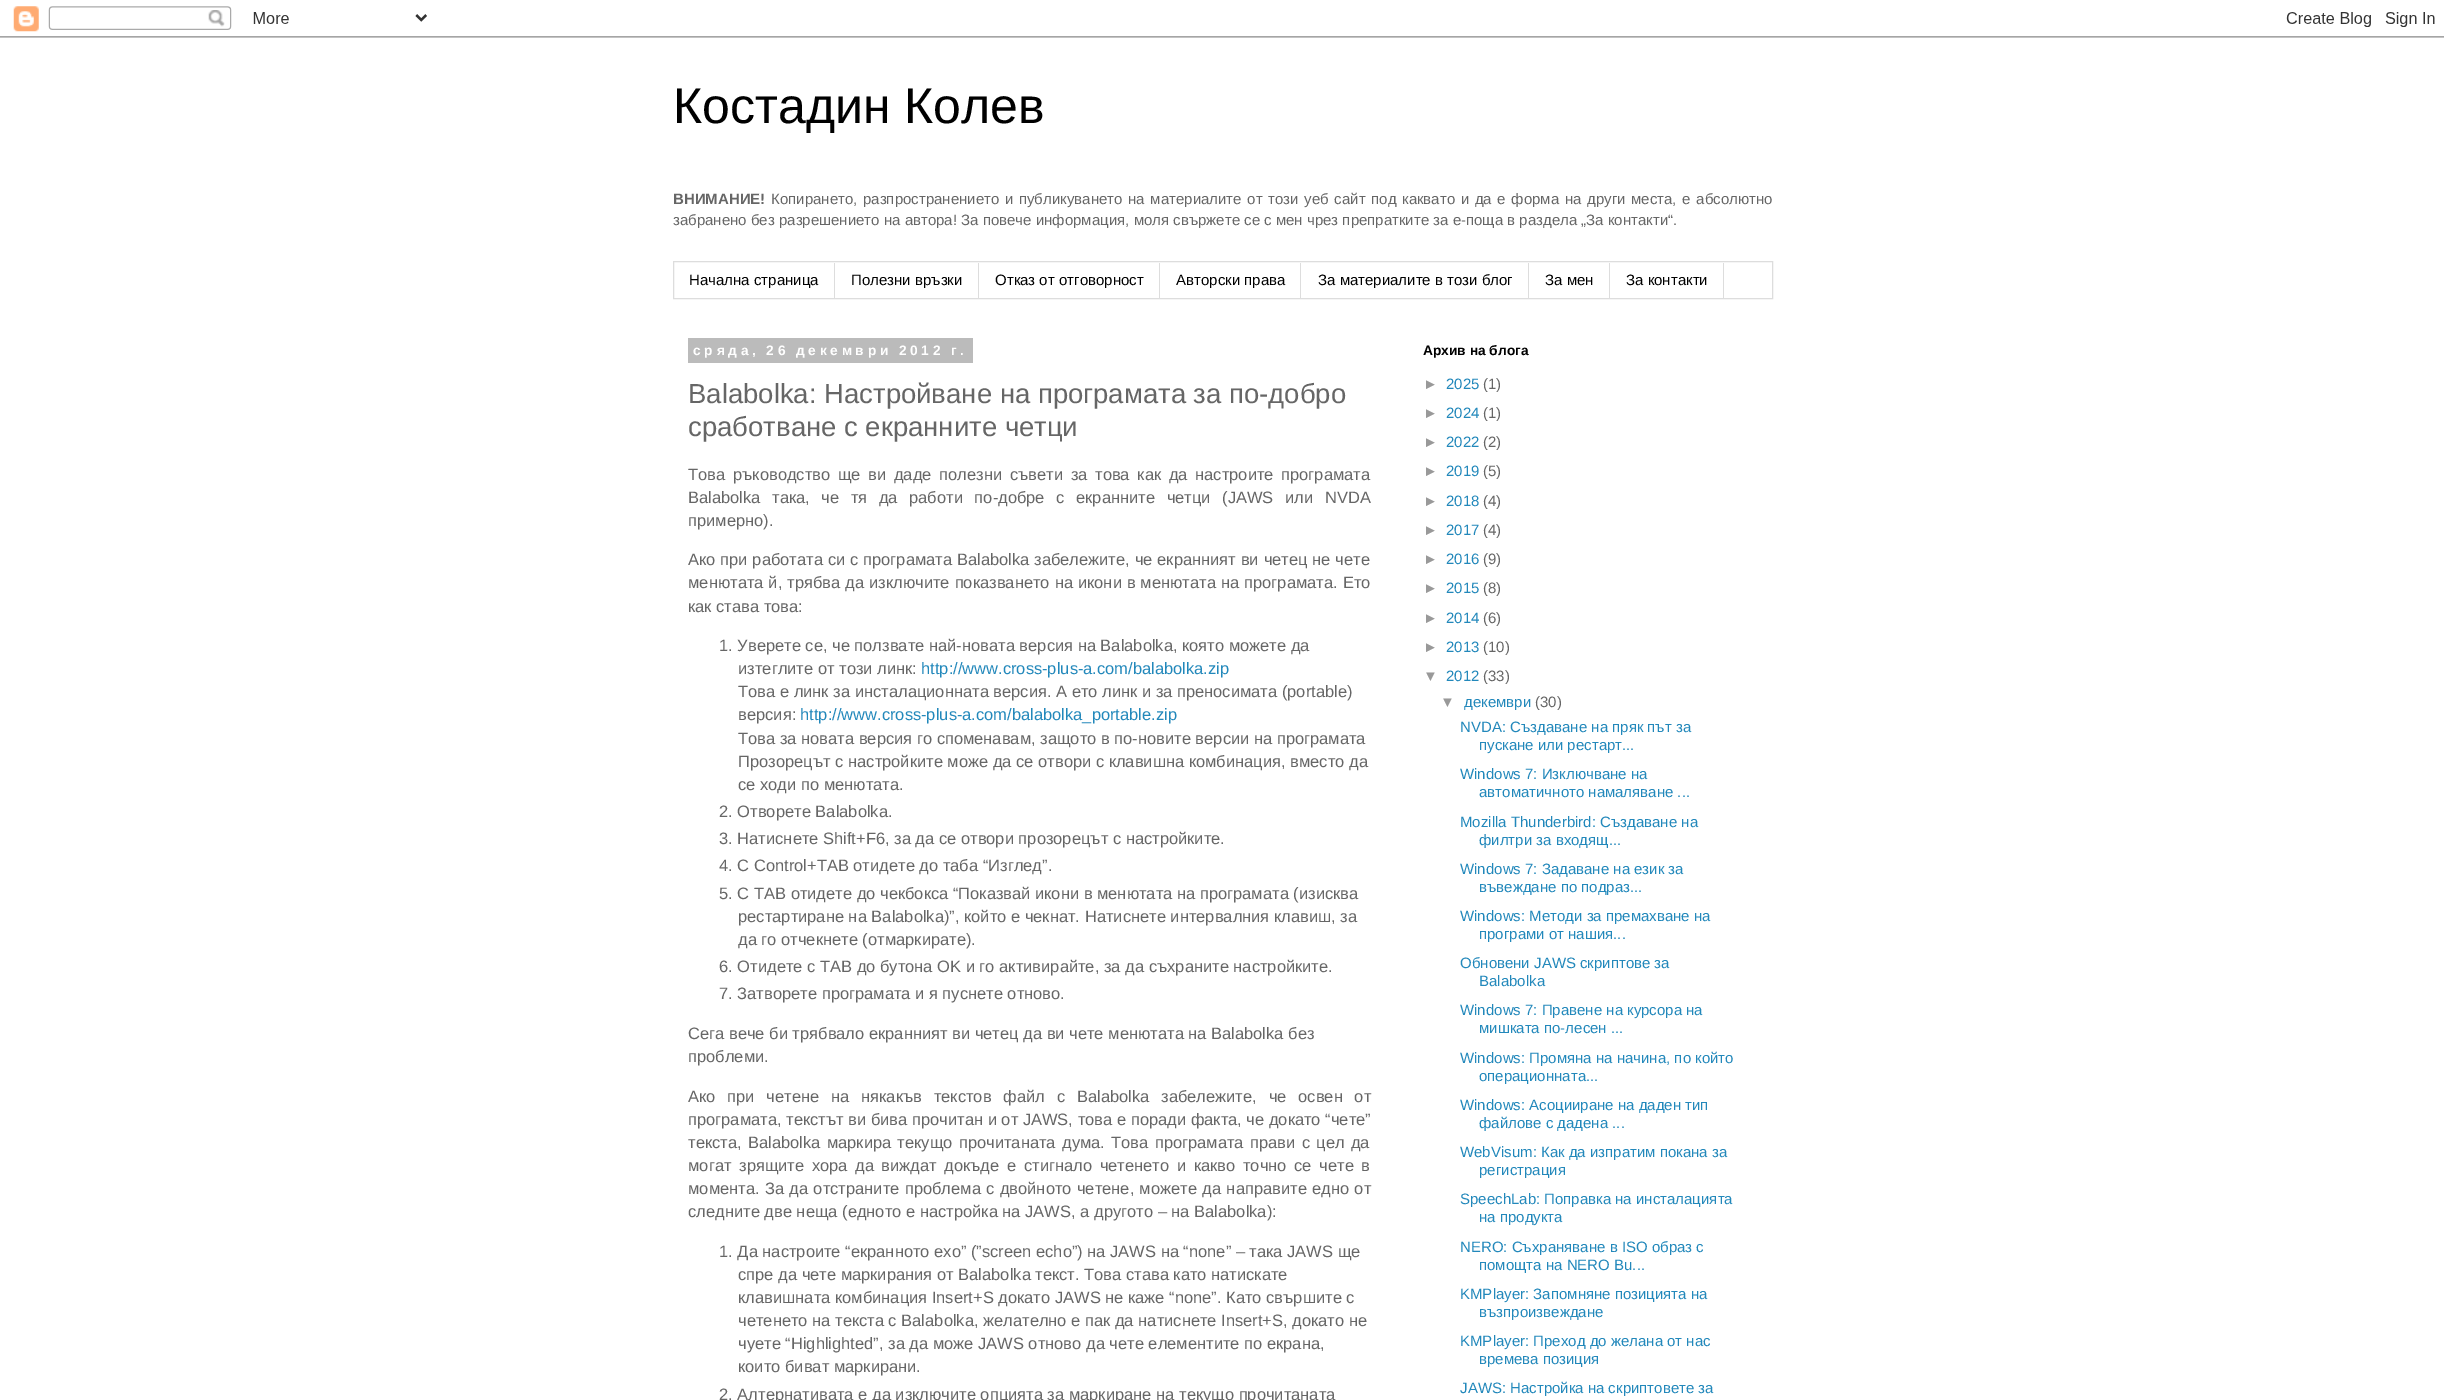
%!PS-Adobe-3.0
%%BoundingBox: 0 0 2444 1400
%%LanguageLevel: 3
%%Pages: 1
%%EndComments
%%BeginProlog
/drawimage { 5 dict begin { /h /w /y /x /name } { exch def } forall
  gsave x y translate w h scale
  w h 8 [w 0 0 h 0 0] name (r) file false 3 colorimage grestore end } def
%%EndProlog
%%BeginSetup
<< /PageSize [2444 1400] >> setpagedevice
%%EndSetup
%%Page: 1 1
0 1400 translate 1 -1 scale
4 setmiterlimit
1 setgray
0 0 2444 1400 rectfill
(images/1.raw) 0 6 2444 32 drawimage
0.867 setgray
673.5 261.5 1099 37 rectstroke
834 263 1 35 rectfill
978 263 1 35 rectfill
1159 263 1 35 rectfill
1300 263 1 35 rectfill
1528 263 1 35 rectfill
1609 263 1 35 rectfill
1723 263 1 35 rectfill
0.733 setgray
688 338 285 25 rectfill
/LiberationSans-Regular [50 0 0 -50 0 0] selectfont
0 setgray
673 123 moveto (Костадин Колев) show
/LiberationSans-Bold [15 0 0 -15 0 0] selectfont
0.4 setgray
673 204 moveto (ВНИМАНИЕ!) show
/LiberationSans-Regular [15 0 0 -15 0 0] selectfont
771 204 moveto 1.5 0 32 (Копирането, разпространението и публикуването на материалите от този уеб сайт под каквато и да е форма на други места, е абсолютно) widthshow
673 225 moveto (забранено без разрешението на автора! За повече информация, моля свържете се с мен чрез препратките за е-поща в раздела „За контакти“.) show
0 setgray
689 285 moveto (Начална страница) show
851 285 moveto (Полезни връзки) show
995 285 moveto (Отказ от отговорност) show
1176 285 moveto (Авторски права) show
1318 285 moveto (За материалите в този блог) show
1545 285 moveto (За мен) show
1626 285 moveto (За контакти) show
/LiberationSans-Bold [13.75 0 0 -13.75 0 0] selectfont
1 setgray
693 355 moveto -1 0 32 3.75 0 (сряда, 26 декември 2012 г.) awidthshow
/LiberationSans-Regular [27.5 0 0 -27.5 0 0] selectfont
0.4 setgray
688 403 moveto (Balabolka: Настройване на програмата за по-добро) show
688 436 moveto (сработване с екранните четци) show
/LiberationSans-Regular [16.5 0 0 -16.5 0 0] selectfont
688 480 moveto 3.1 0 32 (Това ръководство ще ви даде полезни съвети за това как да настроите програмата) widthshow
688 503 moveto 7 0 32 (Balabolka така, че тя да работи по-добре с екранните четци \(JAWS или NVDA) widthshow
688 526 moveto (примерно\).) show
688 565 moveto 0.25 0 32 (Ако при работата си с програмата Balabolka забележите, че екранният ви четец не чете) widthshow
688 588 moveto 0.4 0 32 (менютата й, трябва да изключите показването на икони в менютата на програмата. Ето) widthshow
688 612 moveto (как става това:) show
719 651 moveto (1. Уверете се, че ползвате най-новата версия на Balabolka, която можете да) show
738 674 moveto (изтеглите от този линк:) show
0.133 0.533 0.733 setrgbcolor
921 674 moveto (http://www.cross-plus-a.com/balabolka.zip) show
0.4 setgray
738 697 moveto (Това е линк за инсталационната версия. А ето линк и за преносимата \(portable\)) show
738 720 moveto (версия:) show
0.133 0.533 0.733 setrgbcolor
800 720 moveto (http://www.cross-plus-a.com/balabolka_portable.zip) show
0.4 setgray
738 744 moveto (Това за новата версия го споменавам, защото в по-новите версии на програмата) show
738 767 moveto (Прозорецът с настройките може да се отвори с клавишна комбинация, вместо да) show
738 790 moveto (се ходи по менютата.) show
719 817 moveto (2. Отворете Balabolka.) show
719 844 moveto (3. Натиснете Shift+F6, за да се отвори прозорецът с настройките.) show
719 871 moveto (4. С Control+TAB отидете до таба “Изглед”.) show
719 899 moveto (5. С TAB отидете до чекбокса “Показвай икони в менютата на програмата \(изисква) show
738 922 moveto (рестартиране на Balabolka\)”, който е чекнат. Натиснете интервалния клавиш, за) show
738 945 moveto (да го отчекнете \(отмаркирате\).) show
719 972 moveto (6. Отидете с TAB до бутона OK и го активирайте, за да съхраните настройките.) show
719 999 moveto (7. Затворете програмата и я пуснете отново.) show
688 1039 moveto (Сега вече би трябвало екранният ви четец да ви чете менютата на Balabolka без) show
688 1062 moveto (проблеми.) show
688 1102 moveto 7.25 0 32 (Ако при четене на някакъв текстов файл с Balabolka забележите, че освен от) widthshow
688 1125 moveto (програмата, текстът ви бива прочитан и от JAWS, това е поради факта, че докато “чете”) show
688 1148 moveto 1.75 0 32 (текста, Balabolka маркира текущо прочитаната дума. Това програмата прави с цел да) widthshow
688 1171 moveto 3.1 0 32 (могат зрящите хора да) widthshow
881 1171 moveto 3.1 0 32 (виждат докъде е стигнало четенето и какво точно се чете в) widthshow
688 1194 moveto 0.75 0 32 (момента. За да отстраните проблема с двойното четене, можете да направите едно от) widthshow
688 1217 moveto (следните две неща \(едното е настройка на JAWS, а другото – на Balabolka\):) show
719 1257 moveto (1. Да настроите “екранното ехо” \(”screen echo”\) на JAWS на “none” – така JAWS ще) show
738 1280 moveto (спре да чете маркирания от Balabolka текст. Това става като натискате) show
738 1303 moveto (клавишната комбинация Insert+S докато JAWS не каже “none”. Като свършите с) show
738 1326 moveto (четенето на текста с Balabolka, желателно е пак да натиснете Insert+S, докато не) show
738 1349 moveto (чуете “Highlighted”, за да може JAWS отново да чете елементите по екрана,) show
738 1372 moveto (които биват маркирани.) show
719 1400 moveto (2. Алтернативата е да изключите опцията за маркиране на текущо прочитаната) show
/LiberationSans-Bold [13.75 0 0 -13.75 0 0] selectfont
0 setgray
1423 355 moveto (Архив на блога) show
/LiberationSans-Regular [15 0 0 -15 0 0] selectfont
0.6 setgray
1423 389 moveto (►) show
0.133 0.533 0.733 setrgbcolor
1446 389 moveto (2025) show
0.4 setgray
1483 389 moveto (\(1\)) show
0.6 setgray
1423 418 moveto (►) show
0.133 0.533 0.733 setrgbcolor
1446 418 moveto (2024) show
0.4 setgray
1483 418 moveto (\(1\)) show
0.6 setgray
1423 447 moveto (►) show
0.133 0.533 0.733 setrgbcolor
1446 447 moveto (2022) show
0.4 setgray
1483 447 moveto (\(2\)) show
0.6 setgray
1423 476 moveto (►) show
0.133 0.533 0.733 setrgbcolor
1446 476 moveto (2019) show
0.4 setgray
1483 476 moveto (\(5\)) show
0.6 setgray
1423 506 moveto (►) show
0.133 0.533 0.733 setrgbcolor
1446 506 moveto (2018) show
0.4 setgray
1483 506 moveto (\(4\)) show
0.6 setgray
1423 535 moveto (►) show
0.133 0.533 0.733 setrgbcolor
1446 535 moveto (2017) show
0.4 setgray
1483 535 moveto (\(4\)) show
0.6 setgray
1423 564 moveto (►) show
0.133 0.533 0.733 setrgbcolor
1446 564 moveto (2016) show
0.4 setgray
1483 564 moveto (\(9\)) show
0.6 setgray
1423 593 moveto (►) show
0.133 0.533 0.733 setrgbcolor
1446 593 moveto (2015) show
0.4 setgray
1483 593 moveto (\(8\)) show
0.6 setgray
1423 623 moveto (►) show
0.133 0.533 0.733 setrgbcolor
1446 623 moveto (2014) show
0.4 setgray
1483 623 moveto (\(6\)) show
0.6 setgray
1423 652 moveto (►) show
0.133 0.533 0.733 setrgbcolor
1446 652 moveto (2013) show
0.4 setgray
1483 652 moveto (\(10\)) show
0.6 setgray
1423 681 moveto (▼) show
0.133 0.533 0.733 setrgbcolor
1446 681 moveto (2012) show
0.4 setgray
1483 681 moveto (\(33\)) show
0.6 setgray
1440 707 moveto (▼) show
0.133 0.533 0.733 setrgbcolor
1464 707 moveto (декември) show
0.4 setgray
1535 707 moveto (\(30\)) show
0.133 0.533 0.733 setrgbcolor
1460 732 moveto (NVDA: Създаване на пряк път за) show
1479 750 moveto (пускане или рестарт...) show
1460 779 moveto (Windows 7: Изключване на) show
1479 797 moveto (автоматичното намаляване ...) show
1460 827 moveto (Mozilla Thunderbird: Създаване на) show
1479 845 moveto (филтри за входящ...) show
1460 874 moveto (Windows 7: Задаване на език за) show
1479 892 moveto (въвеждане по подраз...) show
1460 921 moveto (Windows: Методи за премахване на) show
1479 939 moveto (програми от нашия...) show
1460 968 moveto (Обновени JAWS скриптове за) show
1479 986 moveto (Balabolka) show
1460 1015 moveto (Windows 7: Правене на курсора на) show
1479 1033 moveto (мишката по-лесен ...) show
1460 1063 moveto (Windows: Промяна на начина, по който) show
1479 1081 moveto (операционната...) show
1460 1110 moveto (Windows: Асоцииране на даден тип) show
1479 1128 moveto (файлове с дадена ...) show
1460 1157 moveto (WebVisum: Как да изпратим покана за) show
1479 1175 moveto (регистрация) show
1460 1204 moveto (SpeechLab: Поправка на инсталацията) show
1479 1222 moveto (на продукта) show
1460 1252 moveto (NERO: Съхраняване в ISO образ с) show
1479 1270 moveto (помощта на NERO Bu...) show
1460 1299 moveto (KMPlayer: Запомняне позицията на) show
1479 1317 moveto (възпроизвеждане) show
1460 1346 moveto (KMPlayer: Преход до желана от нас) show
1479 1364 moveto (времева позиция) show
1460 1393 moveto (JAWS: Настройка на скриптовете за) show
showpage
%%EOF
